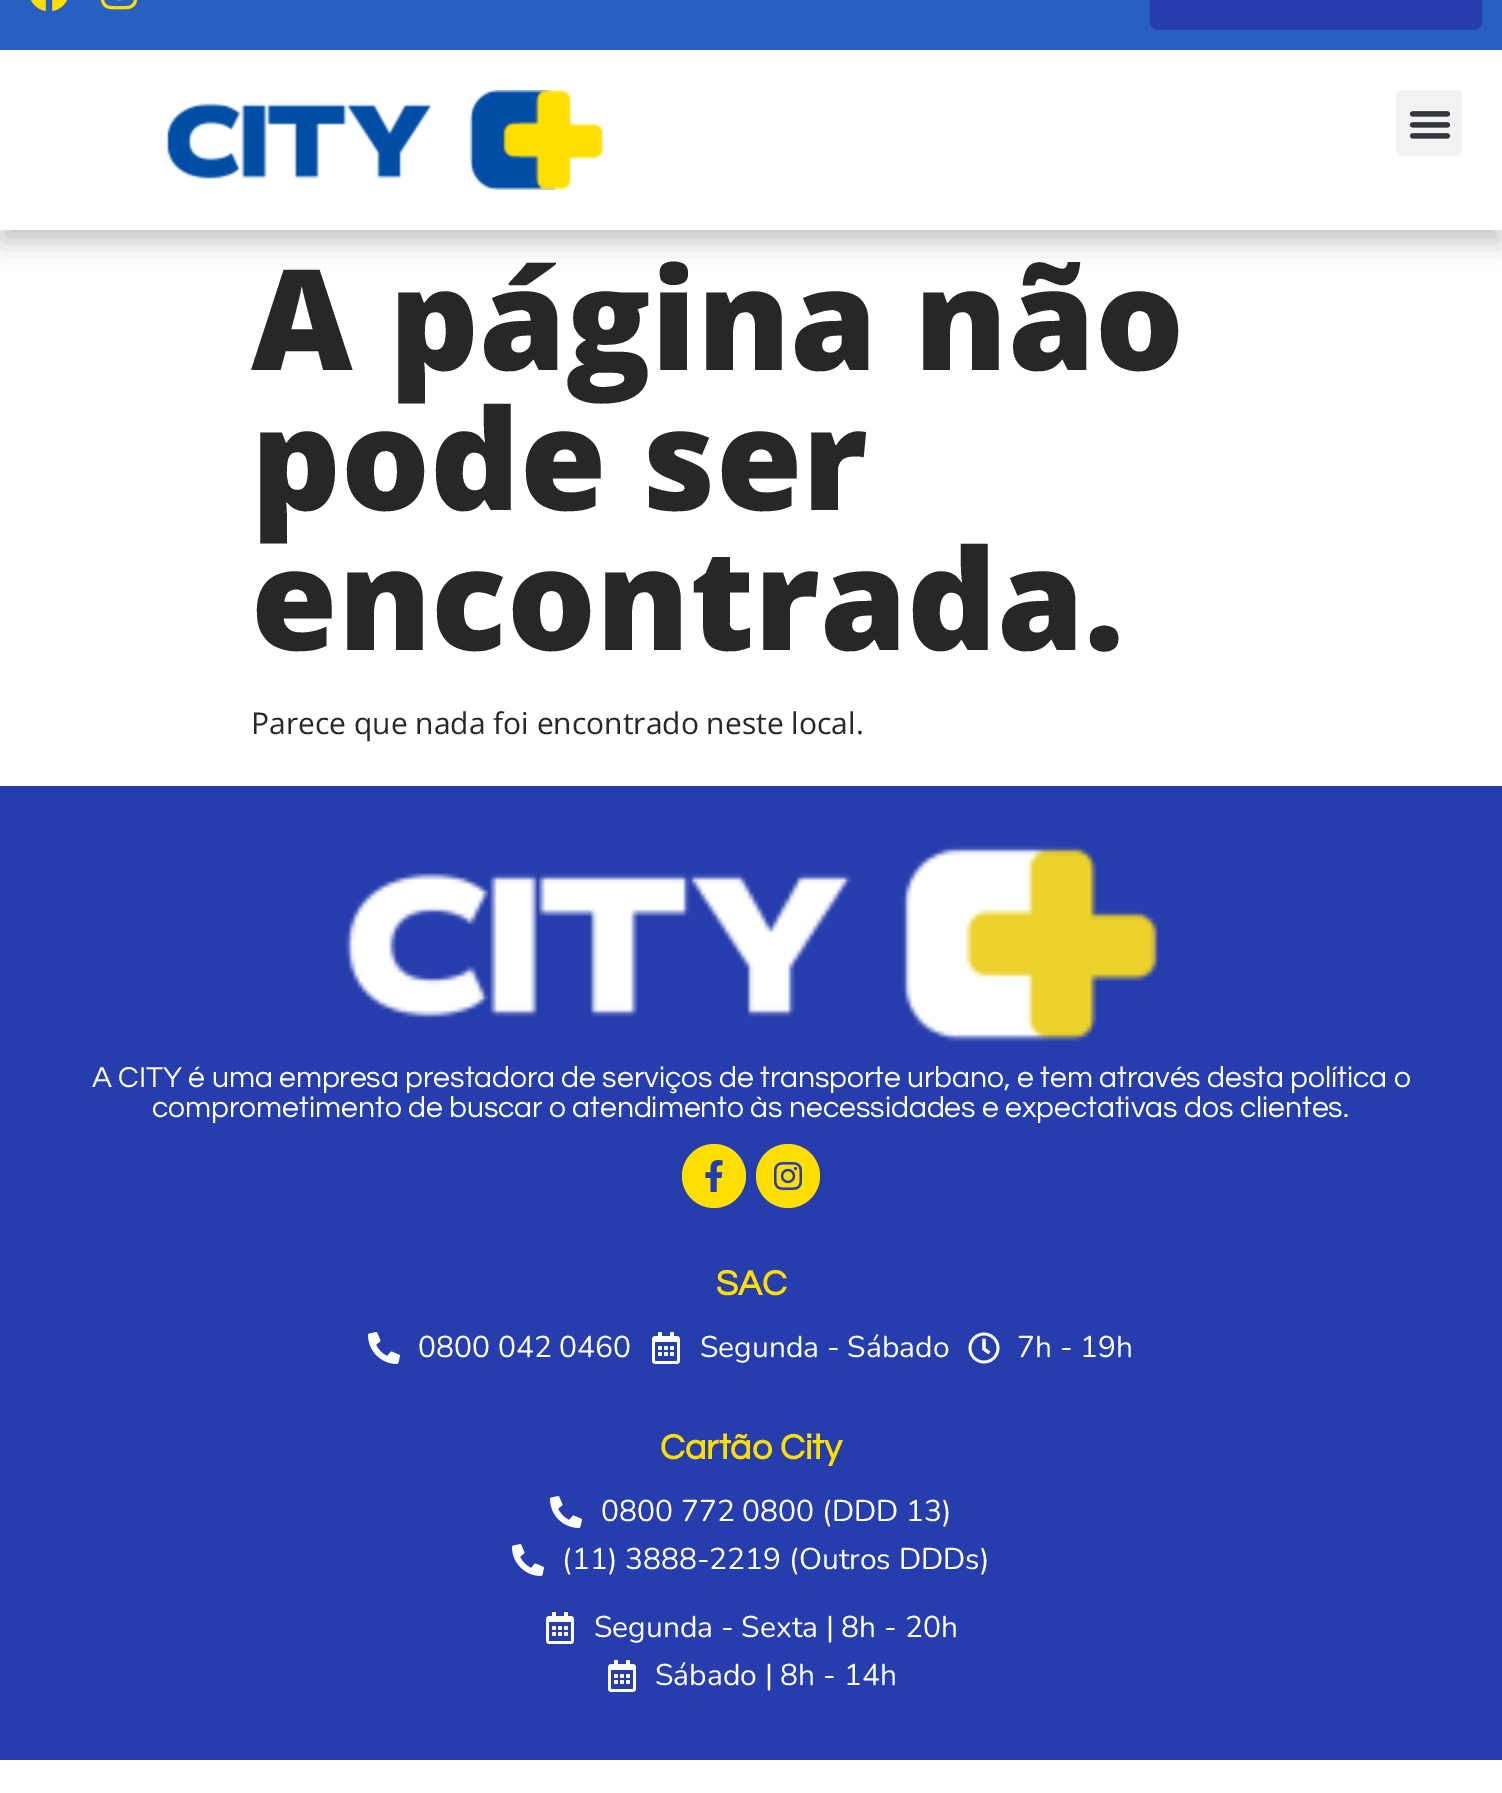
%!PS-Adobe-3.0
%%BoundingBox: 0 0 1502 1793
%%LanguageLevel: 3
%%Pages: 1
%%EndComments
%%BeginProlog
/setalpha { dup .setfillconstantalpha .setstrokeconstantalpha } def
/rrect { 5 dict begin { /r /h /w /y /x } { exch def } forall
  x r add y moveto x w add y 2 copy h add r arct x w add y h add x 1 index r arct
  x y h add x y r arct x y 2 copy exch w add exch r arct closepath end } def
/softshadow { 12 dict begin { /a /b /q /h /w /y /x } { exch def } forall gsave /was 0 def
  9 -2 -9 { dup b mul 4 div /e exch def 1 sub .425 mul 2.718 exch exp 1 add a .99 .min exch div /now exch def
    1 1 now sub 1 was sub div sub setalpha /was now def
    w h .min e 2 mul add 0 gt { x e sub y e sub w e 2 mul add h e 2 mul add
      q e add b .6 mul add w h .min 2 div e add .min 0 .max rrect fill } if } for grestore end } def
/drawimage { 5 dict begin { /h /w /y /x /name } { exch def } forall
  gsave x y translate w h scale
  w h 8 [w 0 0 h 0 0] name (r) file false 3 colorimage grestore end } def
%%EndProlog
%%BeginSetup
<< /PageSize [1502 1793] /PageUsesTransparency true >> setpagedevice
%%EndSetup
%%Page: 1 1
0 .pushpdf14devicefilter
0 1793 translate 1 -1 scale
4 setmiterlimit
1 setgray
0 0 1502 1793 rectfill
0.157 0.376 0.761 setrgbcolor
0 0 1502 50 rectfill
(images/1.raw) 30 0 38 11 drawimage
(images/2.raw) 100 0 38 10 drawimage
0.145 0.239 0.678 setrgbcolor
1150 -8 332 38 8 rrect fill
gsave
newpath 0 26 moveto 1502 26 lineto 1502 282 lineto 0 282 lineto closepath 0 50 moveto 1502 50 lineto 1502 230 lineto 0 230 lineto closepath eoclip newpath
0 setgray
2 66 1498 176 0 13 0.24 softshadow
grestore
(images/3.raw) 166 90 438 100 drawimage
0.949 setgray
1396 90 66 66 6 rrect fill
(images/4.raw) 1409 111 42 28 drawimage
0.145 0.239 0.678 setrgbcolor
0 786 1502 974 rectfill
(images/5.raw) 345 846 814 196 drawimage
1 0.875 0 setrgbcolor
newpath 714 1176 32 0 360 arc closepath fill
(images/6.raw) 705 1160 18 32 drawimage
newpath 788 1176 32 0 360 arc closepath fill
(images/7.raw) 774 1162 28 28 drawimage
(images/8.raw) 368 1332 32 32 drawimage
(images/9.raw) 652 1332 28 32 drawimage
(images/10.raw) 968 1332 32 32 drawimage
(images/8.raw) 550 1496 32 32 drawimage
(images/8.raw) 512 1544 32 32 drawimage
(images/9.raw) 546 1612 28 32 drawimage
(images/9.raw) 608 1660 28 32 drawimage
/OpenSans-ExtraBold [140 0 0 -140 0 0] selectfont
0.153 setgray
251 370 moveto (A página não) show
251 510 moveto (pode ser) show
251 650 moveto (encontrada.) show
/OpenSans-Regular [30 0 0 -30 0 0] selectfont
251 734 moveto (Parece que nada foi encontrado neste local.) show
/Questrial-Regular [30 0 0 -30 0 0] selectfont
1 setgray
92 1087 moveto (A CITY é uma empresa prestadora de serviços de transporte urbano, e tem através desta política o) show
152 1117 moveto (comprometimento de buscar o atendimento às necessidades e expectativas dos clientes.) show
/Questrial-Bold [36 0 0 -36 0 0] selectfont
1 0.875 0 setrgbcolor
716 1295 moveto (SAC) show
/Nunito-Regular [30 0 0 -30 0 0] selectfont
1 setgray
418 1357 moveto (0800 042 0460) show
700 1357 moveto (Segunda - Sábado) show
1017 1357 moveto (7h - 19h) show
/Questrial-Bold [36 0 0 -36 0 0] selectfont
1 0.875 0 setrgbcolor
660 1459 moveto (Cartão City) show
/Nunito-Regular [30 0 0 -30 0 0] selectfont
1 setgray
601 1521 moveto (0800 772 0800 \(DDD 13\)) show
562 1569 moveto (\(11\) 3888-2219 \(Outros DDDs\)) show
594 1637 moveto (Segunda - Sexta | 8h - 20h) show
655 1685 moveto (Sábado | 8h - 14h) show
.poppdf14devicefilter showpage
%%EOF
